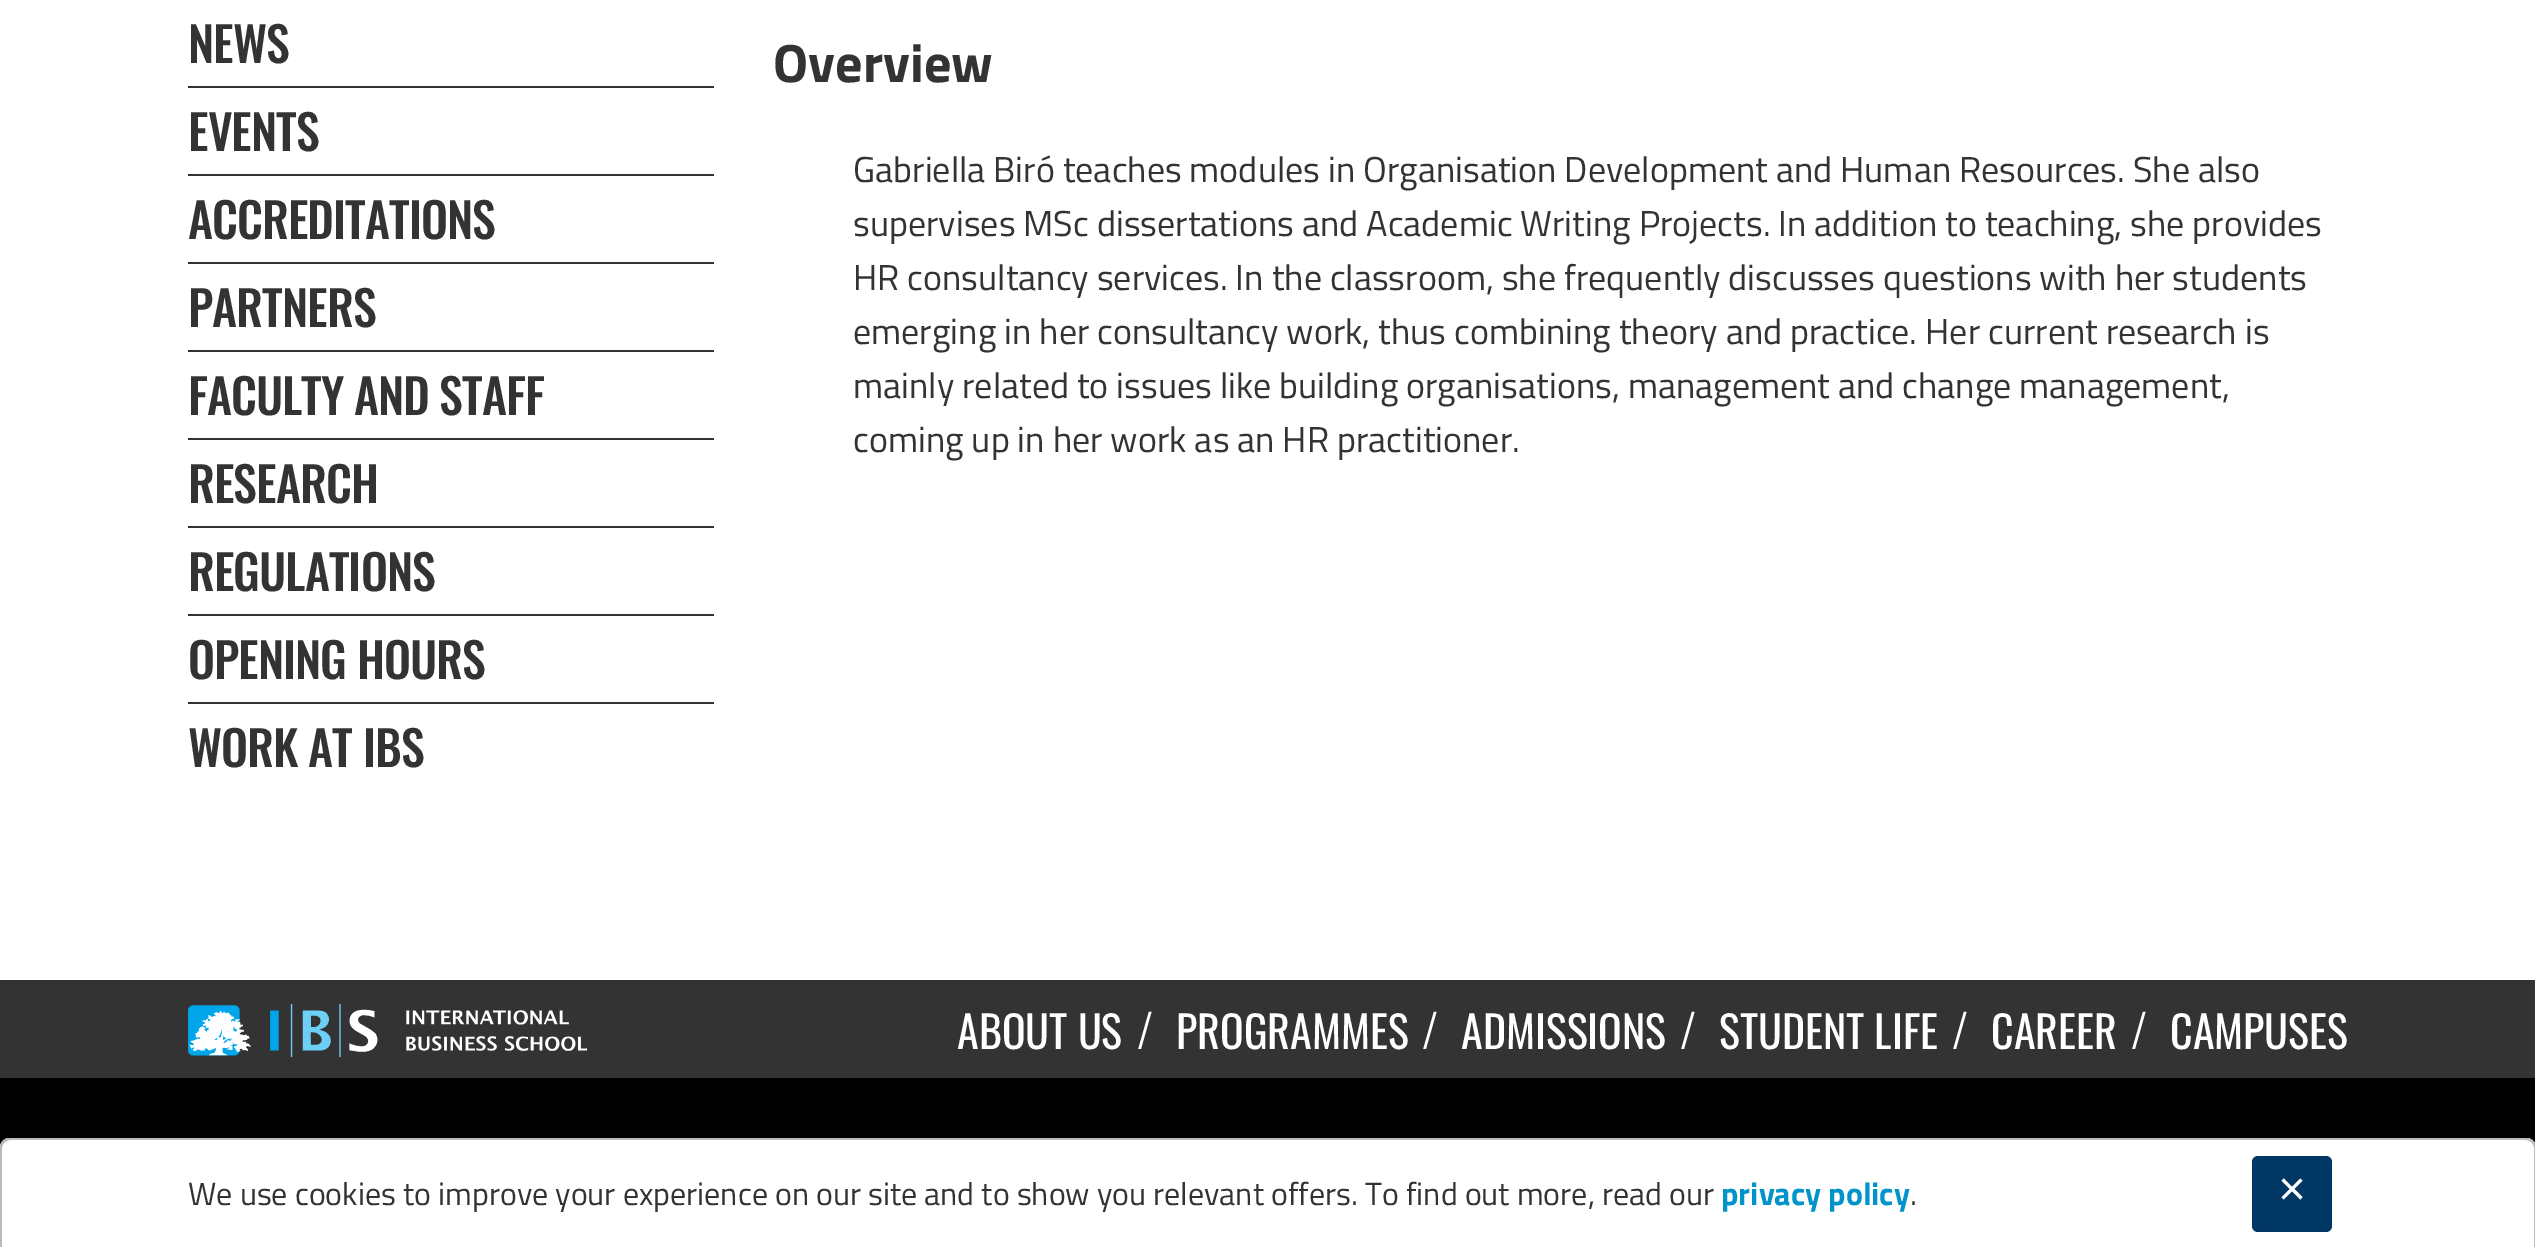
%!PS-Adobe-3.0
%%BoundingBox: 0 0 2535 1247
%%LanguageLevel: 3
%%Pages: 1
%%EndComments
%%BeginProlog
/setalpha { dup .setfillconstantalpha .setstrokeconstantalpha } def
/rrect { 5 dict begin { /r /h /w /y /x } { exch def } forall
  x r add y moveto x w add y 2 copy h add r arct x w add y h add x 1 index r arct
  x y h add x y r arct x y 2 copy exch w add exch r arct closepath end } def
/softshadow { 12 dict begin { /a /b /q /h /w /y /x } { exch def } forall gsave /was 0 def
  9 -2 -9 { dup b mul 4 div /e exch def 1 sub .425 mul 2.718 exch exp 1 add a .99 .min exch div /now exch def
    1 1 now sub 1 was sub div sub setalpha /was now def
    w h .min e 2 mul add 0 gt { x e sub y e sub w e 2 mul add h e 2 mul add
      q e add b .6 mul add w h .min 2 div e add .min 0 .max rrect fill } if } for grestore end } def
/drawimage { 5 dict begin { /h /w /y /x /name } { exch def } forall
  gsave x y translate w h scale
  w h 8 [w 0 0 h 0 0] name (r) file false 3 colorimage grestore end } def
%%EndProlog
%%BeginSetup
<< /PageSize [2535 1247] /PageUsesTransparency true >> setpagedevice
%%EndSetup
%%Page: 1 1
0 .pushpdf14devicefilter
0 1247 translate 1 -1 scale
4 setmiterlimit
1 setgray
0 0 2535 1247 rectfill
0.2 setgray
188 86 526 2 rectfill
188 174 526 2 rectfill
188 262 526 2 rectfill
188 350 526 2 rectfill
188 438 526 2 rectfill
188 526 526 2 rectfill
188 614 526 2 rectfill
188 702 526 2 rectfill
0 980 2535 98 rectfill
(images/1.raw) 188 1004 400 53 drawimage
0 setgray
0 1078 2535 70 rectfill
0 1138 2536 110 10 15 0.25 softshadow
1 setgray
newpath 10 1138 moveto 2526 1138 lineto 2531.5 1138 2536 1142.5 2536 1148 curveto 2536 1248 lineto 0 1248 lineto 0 1148 lineto 0 1142.5 4.5 1138 10 1138 curveto closepath fill
0.733 setgray
newpath 10 1138 moveto 2526 1138 lineto 2532 1138 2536 1142 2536 1148 curveto 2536 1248 lineto 0 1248 lineto 0 1148 lineto 0 1142 4 1138 10 1138 curveto closepath 10 1140 moveto 2526 1140 lineto 2530 1140 2534 1144 2534 1148 curveto 2534 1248 lineto 2 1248 lineto 2 1148 lineto 2 1144 6 1140 10 1140 curveto closepath eofill
0 0.216 0.392 setrgbcolor
2252 1156 80 76 6 rrect fill
/Oswald-Medium [48 0 0 -48 0 0] selectfont
0.2 setgray
188 63 moveto -1 0 (NEWS) ashow
188 151 moveto -1 0 (EVENTS) ashow
188 239 moveto -1 0 (ACCREDITATIONS) ashow
188 327 moveto -1 0 (PARTNERS) ashow
188 415 moveto -1 0 (FACULTY AND STAFF) ashow
188 503 moveto -1 0 (RESEARCH) ashow
188 591 moveto -1 0 (REGULATIONS) ashow
188 679 moveto -1 0 (OPENING HOURS) ashow
188 767 moveto -1 0 (WORK AT IBS) ashow
/TitilliumWeb-Bold [54 0 0 -54 0 0] selectfont
773 82 moveto (Overview) show
/TitilliumWeb-Regular [36 0 0 -36 0 0] selectfont
853 182 moveto (Gabriella Biró teaches modules in Organisation Development and Human Resources. She also) show
853 236 moveto (supervises MSc dissertations and Academic Writing Projects. In addition to teaching, she provides) show
853 290 moveto (HR consultancy services. In the classroom, she frequently discusses questions with her students) show
853 344 moveto (emerging in her consultancy work, thus combining theory and practice. Her current research is) show
853 398 moveto (mainly related to issues like building organisations, management and change management,) show
853 452 moveto (coming up in her work as an HR practitioner.) show
/Oswald-Regular [44 0 0 -44 0 0] selectfont
1 setgray
957 1049 moveto (ABOUT US) show
/Oswald-Light [46 0 0 -46 0 0] selectfont
1137 1049 moveto (/) show
/Oswald-Regular [44 0 0 -44 0 0] selectfont
1176 1049 moveto (PROGRAMMES) show
/Oswald-Light [46 0 0 -46 0 0] selectfont
1422 1049 moveto (/) show
/Oswald-Regular [44 0 0 -44 0 0] selectfont
1461 1049 moveto (ADMISSIONS) show
/Oswald-Light [46 0 0 -46 0 0] selectfont
1680 1049 moveto (/) show
/Oswald-Regular [44 0 0 -44 0 0] selectfont
1719 1049 moveto (STUDENT LIFE) show
/Oswald-Light [46 0 0 -46 0 0] selectfont
1952 1049 moveto (/) show
/Oswald-Regular [44 0 0 -44 0 0] selectfont
1991 1049 moveto (CAREER) show
/Oswald-Light [46 0 0 -46 0 0] selectfont
2131 1049 moveto (/) show
/Oswald-Regular [44 0 0 -44 0 0] selectfont
2170 1049 moveto (CAMPUSES) show
/TitilliumWeb-Regular [32 0 0 -32 0 0] selectfont
0.2 setgray
188 1205 moveto (We use cookies to improve your experience on our site and to show you relevant offers. To find out more, read our) show
/TitilliumWeb-Bold [32 0 0 -32 0 0] selectfont
0 0.58 0.792 setrgbcolor
1721 1205 moveto (privacy policy) show
/TitilliumWeb-Regular [32 0 0 -32 0 0] selectfont
0.2 setgray
1910 1205 moveto (.) show
/LiberationSans-Regular [48 0 0 -48 0 0] selectfont
1 setgray
2278 1205 moveto (×) show
.poppdf14devicefilter showpage
%%EOF
